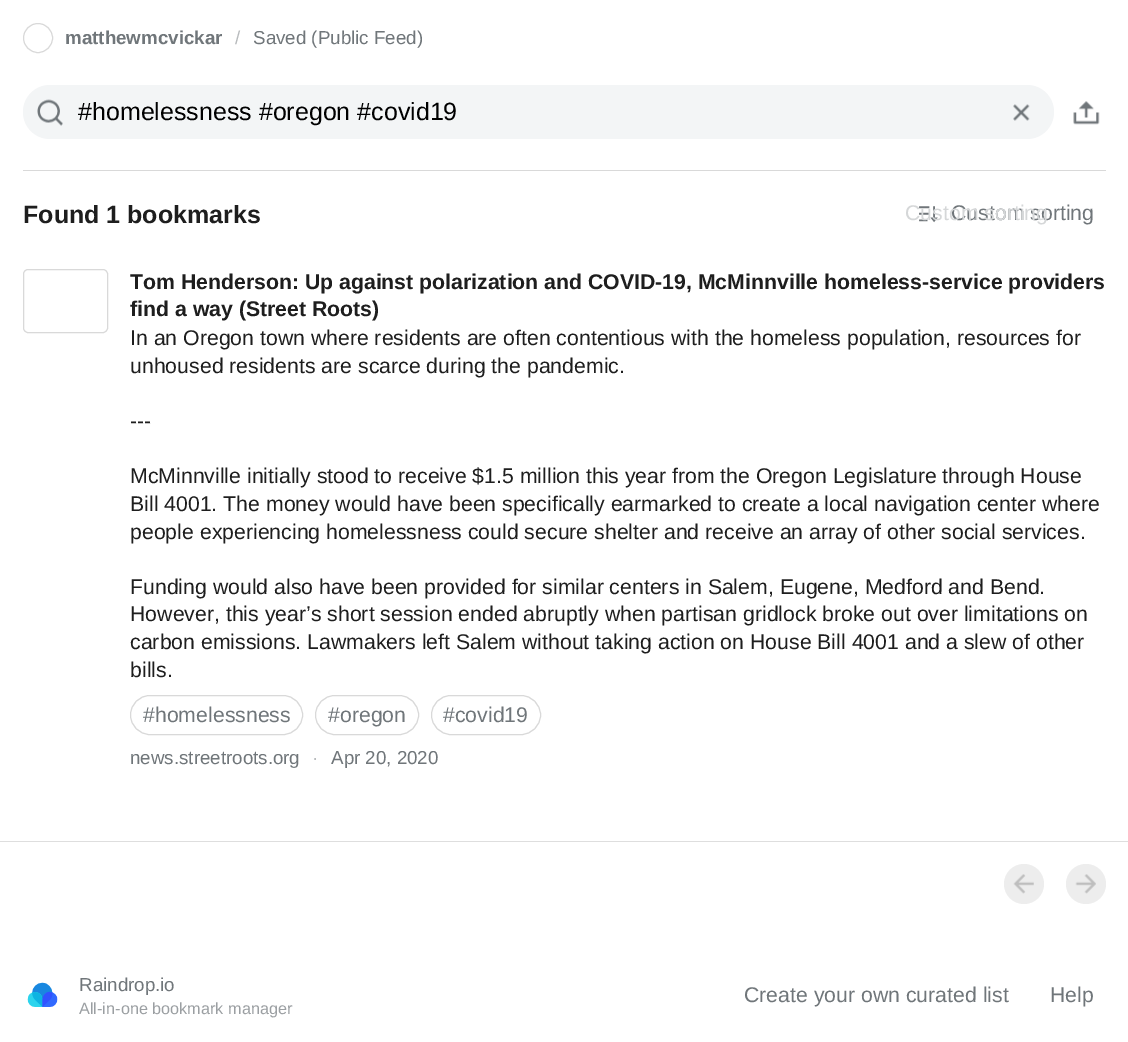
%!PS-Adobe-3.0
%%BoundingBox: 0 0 1128 1042
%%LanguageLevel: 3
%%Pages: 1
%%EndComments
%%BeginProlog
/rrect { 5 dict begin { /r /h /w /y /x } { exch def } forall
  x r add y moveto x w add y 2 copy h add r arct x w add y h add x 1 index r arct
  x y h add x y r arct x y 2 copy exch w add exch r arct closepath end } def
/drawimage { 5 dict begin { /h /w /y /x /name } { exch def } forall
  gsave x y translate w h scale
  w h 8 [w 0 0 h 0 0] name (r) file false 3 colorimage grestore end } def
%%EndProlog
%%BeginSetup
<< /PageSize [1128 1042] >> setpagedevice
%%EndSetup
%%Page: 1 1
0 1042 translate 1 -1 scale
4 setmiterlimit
1 setgray
0 0 1128 1042 rectfill
0.851 setgray
newpath 38 38 14.5 0 360 arc closepath stroke
0.953 0.961 0.965 setrgbcolor
23 85 1031 54 27 rrect fill
(images/1.raw) 37 99 26 27 drawimage
(images/2.raw) 1013 104 17 17 drawimage
(images/3.raw) 1073 101 27 24 drawimage
0.851 setgray
23 170 1083 1 rectfill
(images/4.raw) 919 206 19 17 drawimage
23.5 269.5 84 63 4.5 rrect stroke
130.5 695.5 172 39 19.5 rrect stroke
315.5 695.5 103 39 19.5 rrect stroke
431.5 695.5 109 39 19.5 rrect stroke
0.871 setgray
0 841 1128 1 rectfill
0.929 setgray
newpath 1024 884 20 0 360 arc closepath fill
(images/5.raw) 1013 874 21 20 drawimage
newpath 1086 884 20 0 360 arc closepath fill
(images/6.raw) 1075 874 21 20 drawimage
(images/7.raw) 27 982 31 25 drawimage
/LiberationSans-Bold [18.75 0 0 -18.75 0 0] selectfont
0.439 0.463 0.478 setrgbcolor
65 44 moveto (matthewmcvickar) show
/LiberationSans-Regular [18.75 0 0 -18.75 0 0] selectfont
0.722 0.733 0.741 setrgbcolor
235 44 moveto (/) show
0.439 0.463 0.478 setrgbcolor
253 44 moveto (Saved \(Public Feed\)) show
/LiberationSans-Regular [25 0 0 -25 0 0] selectfont
0 setgray
78 120 moveto (#homelessness #oregon #covid19) show
/LiberationSans-Bold [25 0 0 -25 0 0] selectfont
0.118 setgray
23 223 moveto (Found 1 bookmarks) show
/LiberationSans-Regular [21.25 0 0 -21.25 0 0] selectfont
0.439 0.463 0.478 setrgbcolor
951 220 moveto (Custom sorting) show
0.835 0.843 0.847 setrgbcolor
905 220 moveto (Custom sorting) show
/LiberationSans-Bold [21.25 0 0 -21.25 0 0] selectfont
0.118 setgray
130 289 moveto (Tom Henderson: Up against polarization and COVID-19, McMinnville homeless-service providers) show
130 316 moveto (find a way \(Street Roots\)) show
/LiberationSans-Regular [21.25 0 0 -21.25 0 0] selectfont
130 345 moveto (In an Oregon town where residents are often contentious with the homeless population, resources for) show
130 373 moveto (unhoused residents are scarce during the pandemic.) show
130 428 moveto (---) show
130 483 moveto (McMinnville initially stood to receive $1.5 million this year from the Oregon Legislature through House) show
130 511 moveto (Bill 4001. The money would have been specifically earmarked to create a local navigation center where) show
130 539 moveto (people experiencing homelessness could secure shelter and receive an array of other social services.) show
130 594 moveto (Funding would also have been provided for similar centers in Salem, Eugene, Medford and Bend.) show
130 621 moveto (However, this year’s short session ended abruptly when partisan gridlock broke out over limitations on) show
130 649 moveto (carbon emissions. Lawmakers left Salem without taking action on House Bill 4001 and a slew of other) show
130 677 moveto (bills.) show
0.439 0.463 0.478 setrgbcolor
143 722 moveto (#homelessness) show
328 722 moveto (#oregon) show
443 722 moveto (#covid19) show
/LiberationSans-Regular [18.75 0 0 -18.75 0 0] selectfont
130 764 moveto (news.streetroots.org) show
0.722 0.733 0.741 setrgbcolor
312 764 moveto (·) show
0.439 0.463 0.478 setrgbcolor
331 764 moveto (Apr 20, 2020) show
79 991 moveto (Raindrop.io) show
/LiberationSans-Regular [16.25 0 0 -16.25 0 0] selectfont
0.608 0.624 0.635 setrgbcolor
79 1014 moveto (All-in-one bookmark manager) show
/LiberationSans-Regular [21.25 0 0 -21.25 0 0] selectfont
0.439 0.463 0.478 setrgbcolor
744 1002 moveto (Create your own curated list) show
1050 1002 moveto (Help) show
showpage
%%EOF
